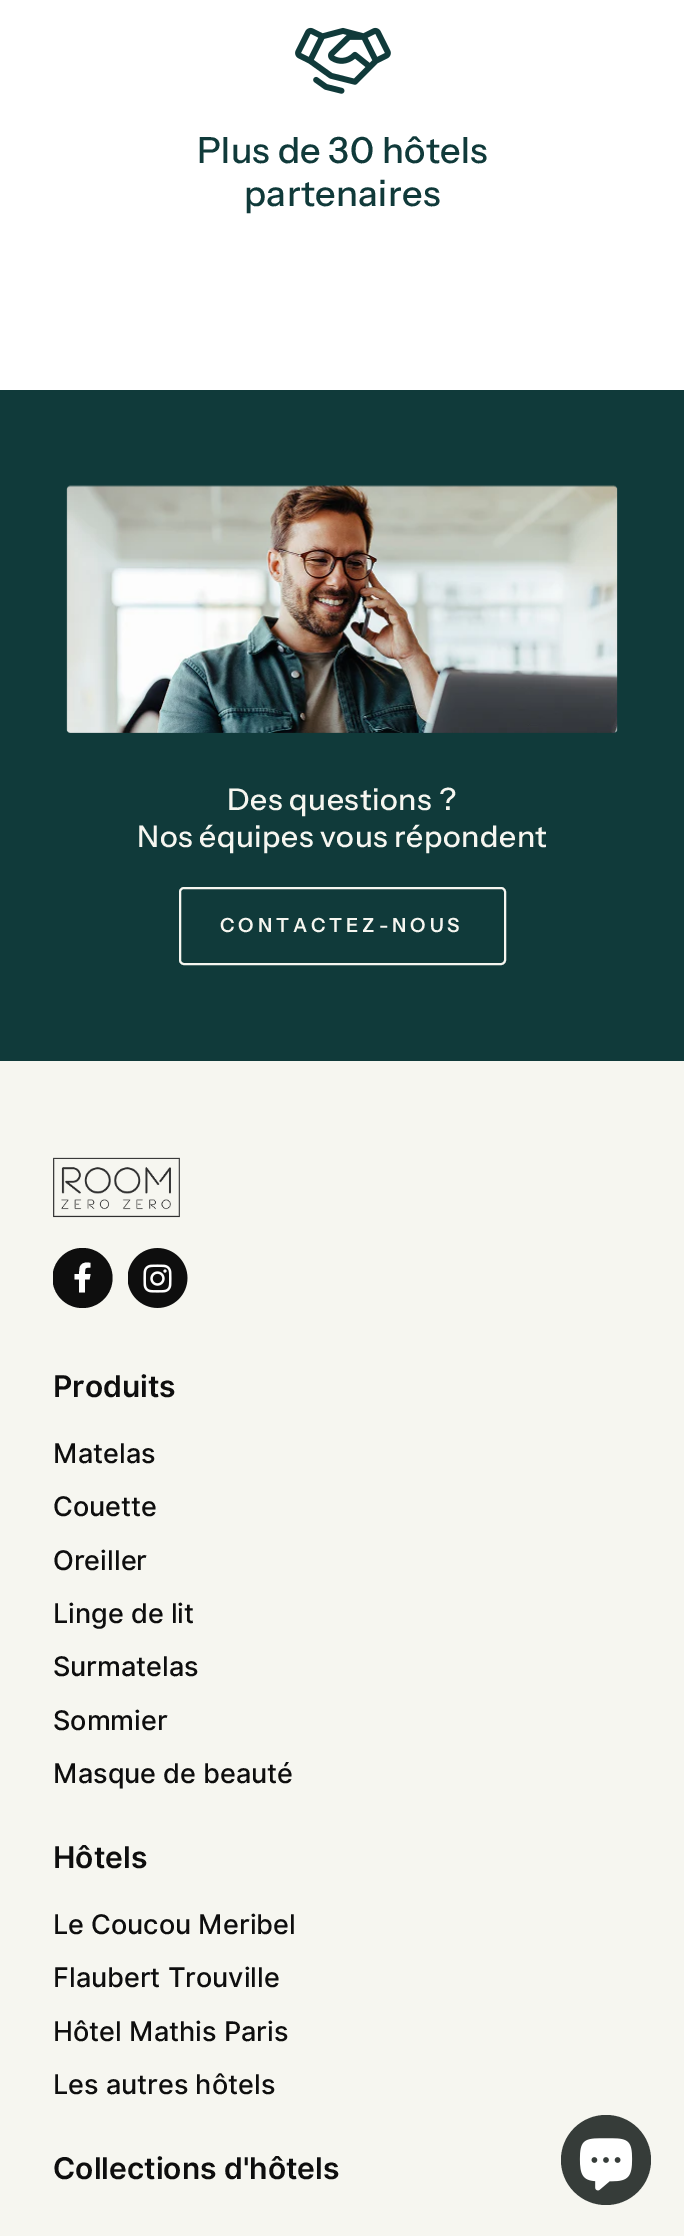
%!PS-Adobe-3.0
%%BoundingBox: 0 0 684 2236
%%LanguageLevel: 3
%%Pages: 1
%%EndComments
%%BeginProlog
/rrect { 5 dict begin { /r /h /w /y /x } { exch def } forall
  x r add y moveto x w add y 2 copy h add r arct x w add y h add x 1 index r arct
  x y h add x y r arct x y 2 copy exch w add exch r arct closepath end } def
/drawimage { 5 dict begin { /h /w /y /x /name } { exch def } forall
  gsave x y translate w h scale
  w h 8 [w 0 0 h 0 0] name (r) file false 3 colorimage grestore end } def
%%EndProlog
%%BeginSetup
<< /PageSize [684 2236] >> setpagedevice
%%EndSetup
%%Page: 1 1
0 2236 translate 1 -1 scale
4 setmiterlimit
1 setgray
0 0 684 2236 rectfill
(images/1.raw) 295 27 96 67 drawimage
0.063 0.227 0.227 setrgbcolor
0 390 684 671 rectfill
(images/2.raw) 66 485 552 248 drawimage
0.965 0.965 0.941 setrgbcolor
2 setlinewidth
180 888 325 76 4 rrect stroke
0 1061 684 1175 rectfill
(images/3.raw) 53 1157 127 61 drawimage
gsave
53 1248 60 60 rectclip
0.055 setgray
newpath 82.5 1278 30 0 360 arc closepath fill
grestore
1 setgray
newpath 89.5 1279.5 moveto 90.5 1274 lineto 85 1274 lineto 85 1268.5 84.5 1267.5 90.5 1267.5 curveto 90.5 1263 lineto 86 1262 80.5 1262.5 79.5 1268.5 curveto 79 1274 lineto 74.5 1274 lineto 74.5 1279.5 lineto 79 1279.5 lineto 79 1292.5 lineto 85 1292.5 lineto 85 1279.5 lineto closepath fill
(images/4.raw) 128 1248 60 60 drawimage
0.212 0.235 0.224 setrgbcolor
newpath 606 2160 45 0 360 arc closepath fill
(images/5.raw) 579 2138 54 53 drawimage
/InstrumentSans-Medium [36 0 0 -36 0 0] selectfont
0.063 0.227 0.227 setrgbcolor
197 163 moveto 0.4 0 (Plus de 30 hôtels) ashow
244 206 moveto 0.4 0 (partenaires) ashow
/InstrumentSans-Medium [30 0 0 -30 0 0] selectfont
0.965 0.965 0.941 setrgbcolor
227 810 moveto 0.6 0 (Des questions ?) ashow
137 847 moveto -0.5 0 32 0.6 0 (Nos équipes vous répondent) awidthshow
/InstrumentSans-SemiBold [19.5 0 0 -19.5 0 0] selectfont
220 932 moveto 3.9 0 (CONTACTEZ-NOUS) ashow
/Inter-SemiBold [30 0 0 -30 0 0] selectfont
0.055 setgray
53 1397 moveto (Produits) show
/Inter-Medium [27 0 0 -27 0 0] selectfont
53 1463 moveto (Matelas) show
53 1516 moveto (Couette) show
53 1570 moveto (Oreiller) show
53 1623 moveto (Linge de lit) show
53 1676 moveto (Surmatelas) show
53 1730 moveto (Sommier) show
53 1783 moveto (Masque de beauté) show
/Inter-SemiBold [30 0 0 -30 0 0] selectfont
53 1868 moveto (Hôtels) show
/Inter-Medium [27 0 0 -27 0 0] selectfont
53 1934 moveto (Le Coucou Meribel) show
53 1987 moveto (Flaubert Trouville) show
53 2041 moveto (Hôtel Mathis Paris) show
53 2094 moveto (Les autres hôtels) show
/Inter-SemiBold [30 0 0 -30 0 0] selectfont
53 2179 moveto (Collections d'hôtels) show
showpage
%%EOF
